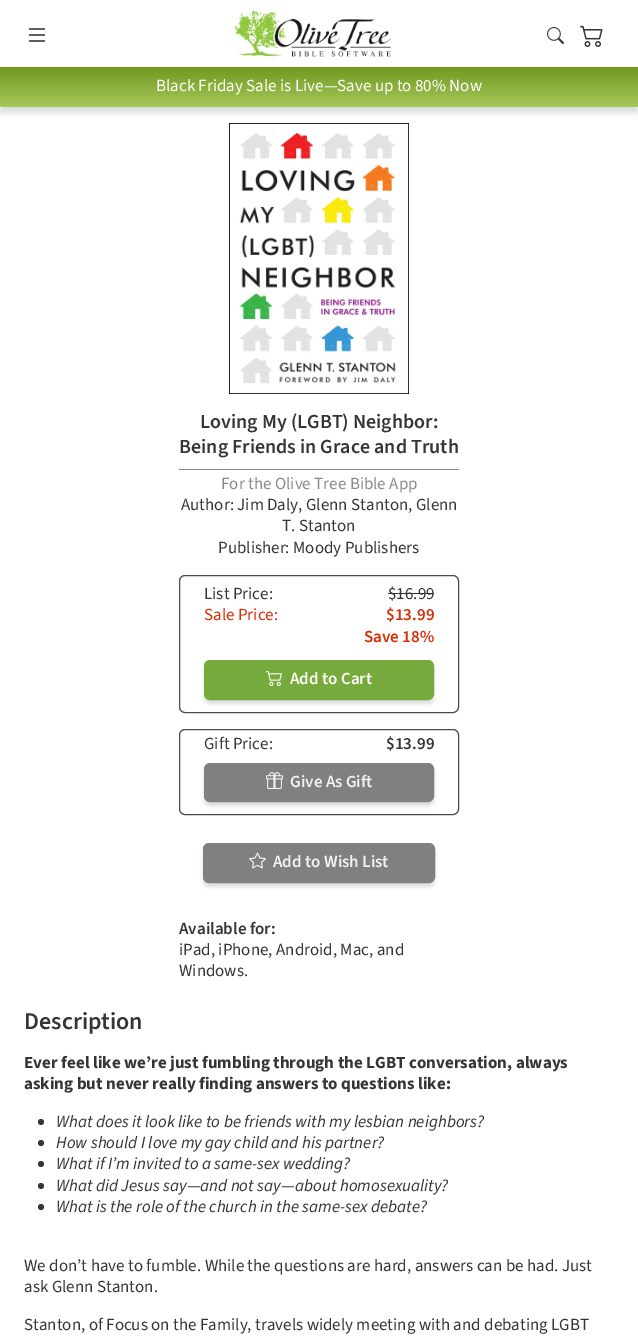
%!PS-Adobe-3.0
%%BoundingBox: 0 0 638 1341
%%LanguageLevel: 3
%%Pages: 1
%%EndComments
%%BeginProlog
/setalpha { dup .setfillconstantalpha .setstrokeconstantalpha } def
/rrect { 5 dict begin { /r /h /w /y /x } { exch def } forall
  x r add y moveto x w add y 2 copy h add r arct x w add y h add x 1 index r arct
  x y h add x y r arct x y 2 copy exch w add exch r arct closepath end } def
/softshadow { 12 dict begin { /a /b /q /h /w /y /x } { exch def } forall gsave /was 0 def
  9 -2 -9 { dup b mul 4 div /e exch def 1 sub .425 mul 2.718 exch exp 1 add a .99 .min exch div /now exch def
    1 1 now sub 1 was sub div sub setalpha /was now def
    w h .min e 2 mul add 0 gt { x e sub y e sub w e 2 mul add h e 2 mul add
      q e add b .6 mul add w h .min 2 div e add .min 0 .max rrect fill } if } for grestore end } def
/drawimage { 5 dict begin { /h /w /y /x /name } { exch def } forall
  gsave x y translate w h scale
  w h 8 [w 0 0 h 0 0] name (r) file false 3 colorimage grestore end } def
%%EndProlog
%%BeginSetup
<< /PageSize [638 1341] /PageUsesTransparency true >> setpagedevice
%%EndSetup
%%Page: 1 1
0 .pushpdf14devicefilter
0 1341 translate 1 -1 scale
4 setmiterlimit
1 setgray
0 0 638 1341 rectfill
(images/1.raw) 28 28 18 14 drawimage
(images/2.raw) 234 9 157 48 drawimage
(images/3.raw) 547 27 17 17 drawimage
(images/4.raw) 580 25 23 22 drawimage
0 setgray
0 73 638 40 0 3 0.13 softshadow
gsave newpath 0 67 moveto 638 67 lineto 638 107 lineto 0 107 lineto closepath clip newpath
<< /ShadingType 2 /ColorSpace /DeviceRGB /Coords [319 67 319 107] /Extend [true true] /Function << /FunctionType 2 /Domain [0 1] /C0 [0.443 0.6 0.125] /C1 [0.651 0.784 0.357] /N 1 >> >> shfill grestore
(images/5.raw) 229 123 180 271 drawimage
0.541 setgray
179 469 280 1 rectfill
0.294 setgray
179.5 575.5 279 137 5.5 rrect stroke
0.208 setgray
388 593 46 1 rectfill
0 setgray
204 664 230 40 6 2 0.13 softshadow
0.467 0.667 0.235 setrgbcolor
204.5 660.5 229 39 5.5 rrect gsave fill grestore
stroke
(images/6.raw) 266 671 16 15 drawimage
0.294 setgray
179.5 729.5 279 85 5.5 rrect stroke
0 setgray
204 767 230 39 6 2 0.13 softshadow
0.502 setgray
204.5 763.5 229 38 5.5 rrect gsave fill grestore
stroke
(images/7.raw) 266 772 17 17 drawimage
0 setgray
203 847 232 40 6 2 0.13 softshadow
0.502 setgray
203.5 843.5 231 39 5.5 rrect gsave fill grestore
stroke
(images/8.raw) 249 852 17 17 drawimage
0.208 setgray
newpath 41 1122 3 0 360 arc closepath fill
newpath 41 1143 3 0 360 arc closepath fill
newpath 41 1164 3 0 360 arc closepath fill
newpath 41 1186 3 0 360 arc closepath fill
newpath 41 1207 3 0 360 arc closepath fill
/SourceSans3-Regular [17 0 0 -17 0 0] selectfont
1 setgray
156 91 moveto (Black Friday Sale is Live—Save up to 80% Now) show
/SourceSans3-SemiBold [20 0 0 -20 0 0] selectfont
0.208 setgray
200 428 moveto (Loving My \(LGBT\) Neighbor:) show
179 453 moveto (Being Friends in Grace and Truth) show
/SourceSans3-Regular [17 0 0 -17 0 0] selectfont
0.541 setgray
221 489 moveto (For the Olive Tree Bible App) show
0.208 setgray
181 510 moveto (Author: Jim Daly, Glenn Stanton, Glenn) show
282 531 moveto (T. Stanton) show
218 553 moveto (Publisher: Moody Publishers) show
204 599 moveto (List Price:) show
388 599 moveto ($16.99) show
0.851 0.169 0.016 setrgbcolor
204 620 moveto (Sale Price:) show
/SourceSans3-SemiBold [17 0 0 -17 0 0] selectfont
386 620 moveto ($13.99) show
364 642 moveto (Save 18%) show
1 setgray
290 684 moveto (Add to Cart) show
/SourceSans3-Regular [17 0 0 -17 0 0] selectfont
0.208 setgray
204 749 moveto (Gift Price:) show
/SourceSans3-SemiBold [17 0 0 -17 0 0] selectfont
386 749 moveto ($13.99) show
0.953 setgray
290 787 moveto (Give As Gift) show
273 867 moveto (Add to Wish List) show
0.208 setgray
179 934 moveto (Available for:) show
/SourceSans3-Regular [17 0 0 -17 0 0] selectfont
179 955 moveto (iPad, iPhone, Android, Mac, and) show
179 976 moveto (Windows.) show
/SourceSans3-SemiBold [24 0 0 -24 0 0] selectfont
24 1029 moveto (Description) show
/SourceSans3-Bold [17 0 0 -17 0 0] selectfont
24 1068 moveto (Ever feel like we’re just fumbling through the LGBT conversation, always) show
24 1089 moveto (asking but never really finding answers to questions like:) show
/SourceSans3-Italic [17 0 0 -17 0 0] selectfont
56 1127 moveto (What does it look like to be friends with my lesbian neighbors?) show
56 1148 moveto (How should I love my gay child and his partner?) show
56 1169 moveto (What if I’m invited to a same-sex wedding?) show
56 1191 moveto (What did Jesus say) show
/SourceSans3-Regular [17 0 0 -17 0 0] selectfont
187 1191 moveto (—) show
/SourceSans3-Italic [17 0 0 -17 0 0] selectfont
200 1191 moveto (and not say) show
/SourceSans3-Regular [17 0 0 -17 0 0] selectfont
281 1191 moveto (—) show
/SourceSans3-Italic [17 0 0 -17 0 0] selectfont
295 1191 moveto (about homosexuality?) show
56 1212 moveto (What is the role of the church in the same-sex debate?) show
/SourceSans3-Regular [17 0 0 -17 0 0] selectfont
24 1271 moveto (We don’t have to fumble. While the questions are hard, answers can be had. Just) show
24 1292 moveto (ask Glenn Stanton.) show
24 1330 moveto (Stanton, of Focus on the Family, travels widely meeting with and debating LGBT) show
.poppdf14devicefilter showpage
%%EOF
